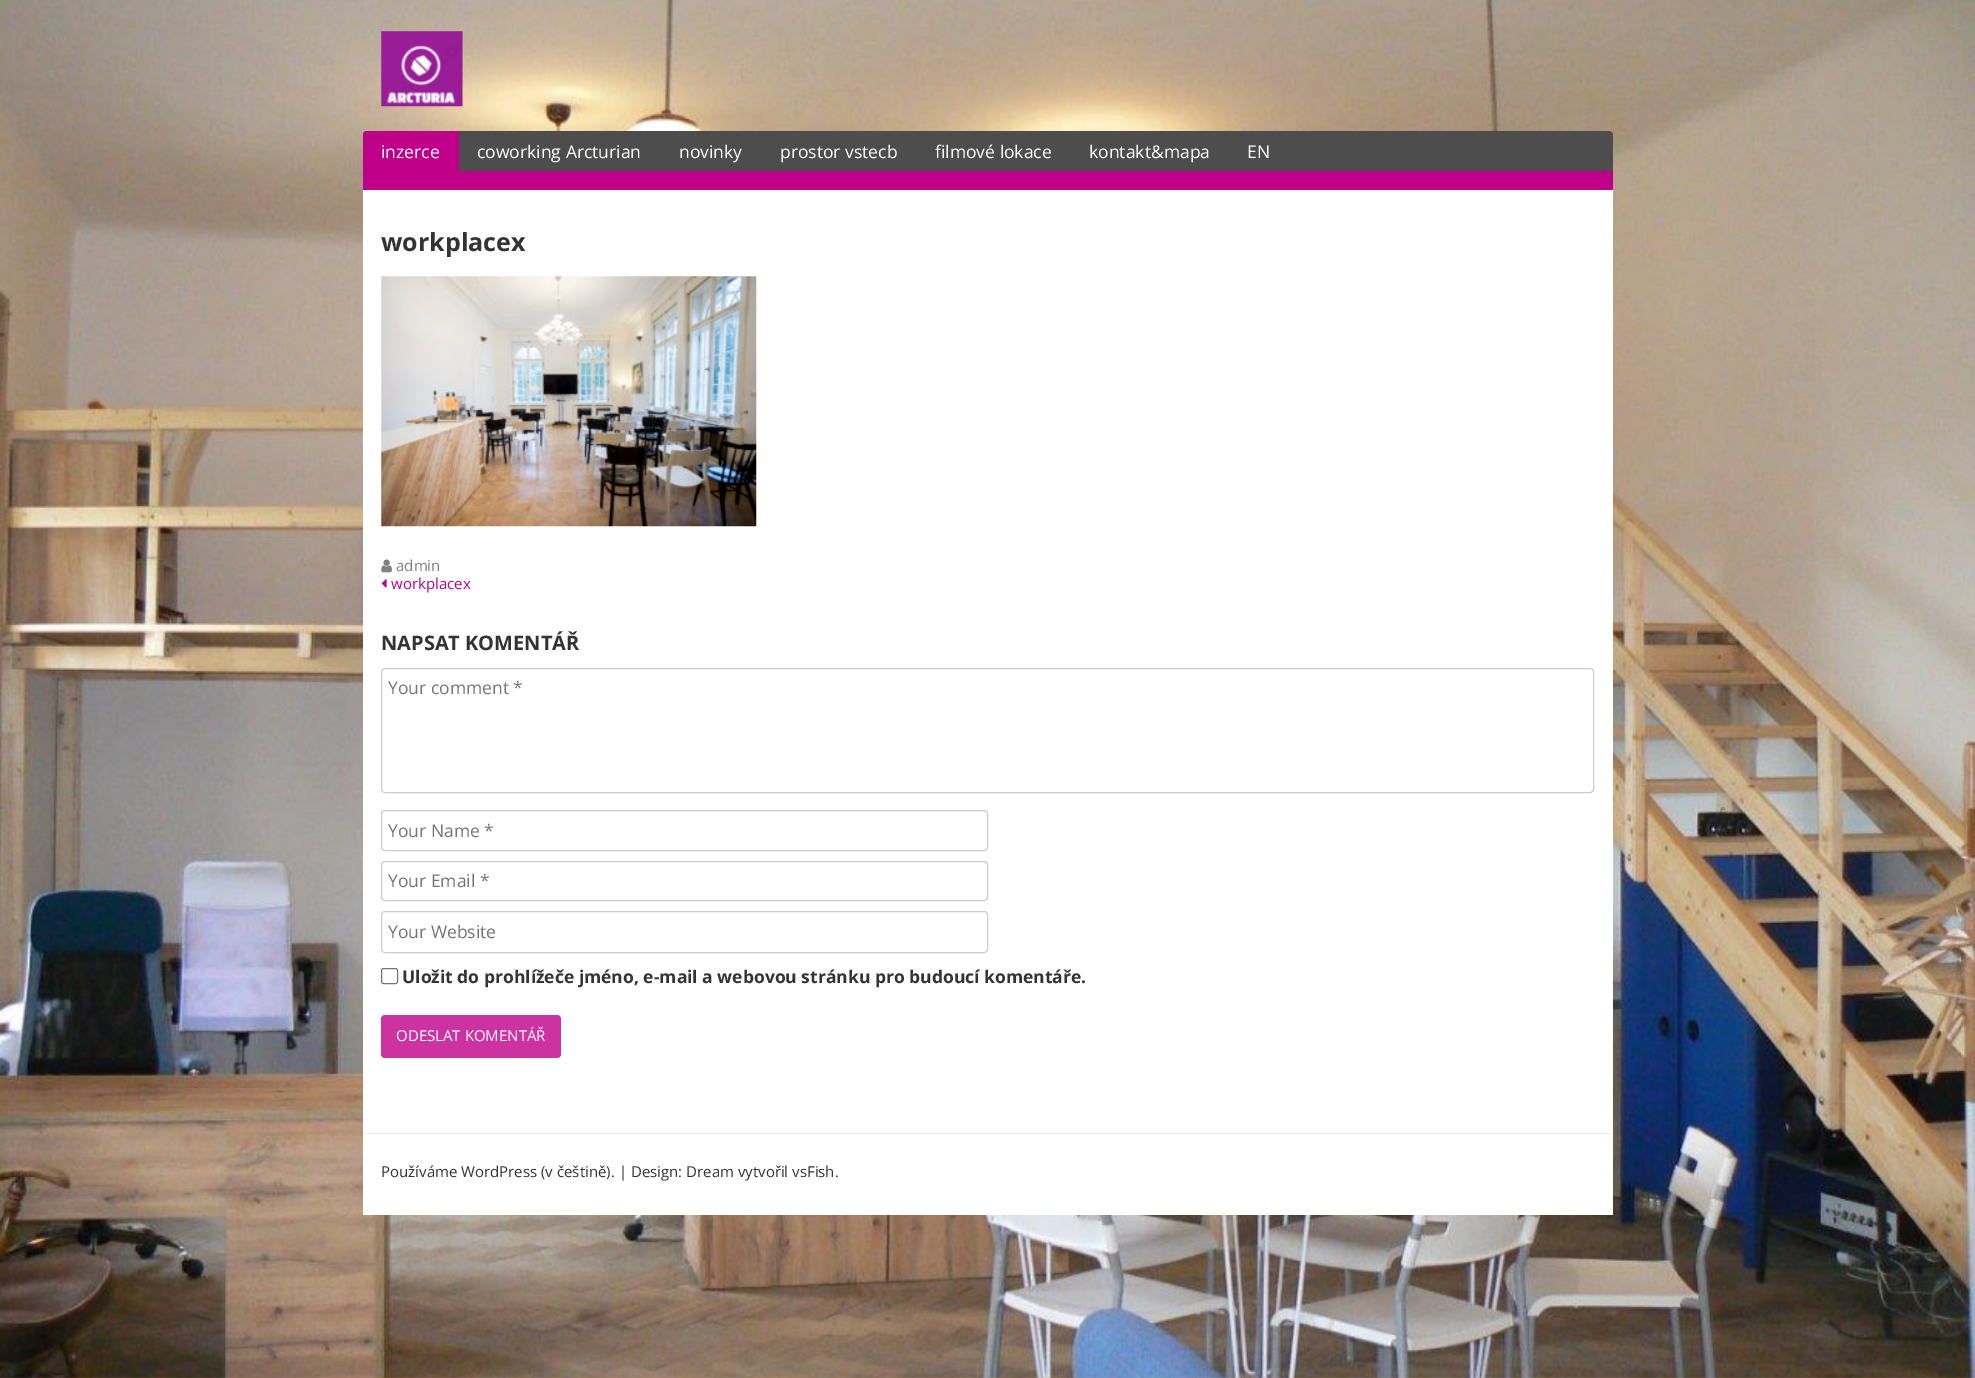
%!PS-Adobe-3.0
%%BoundingBox: 0 0 1975 1378
%%LanguageLevel: 3
%%Pages: 1
%%EndComments
%%BeginProlog
/rrect { 5 dict begin { /r /h /w /y /x } { exch def } forall
  x r add y moveto x w add y 2 copy h add r arct x w add y h add x 1 index r arct
  x y h add x y r arct x y 2 copy exch w add exch r arct closepath end } def
/drawimage { 5 dict begin { /h /w /y /x /name } { exch def } forall
  gsave x y translate w h scale
  w h 8 [w 0 0 h 0 0] name (r) file false 3 colorimage grestore end } def
%%EndProlog
%%BeginSetup
<< /PageSize [1975 1378] >> setpagedevice
%%EndSetup
%%Page: 1 1
0 1378 translate 1 -1 scale
4 setmiterlimit
1 setgray
0 0 1975 1378 rectfill
(images/1.raw) 0 0 1975 1378 drawimage
(images/2.raw) 381 31 82 76 drawimage
0.302 setgray
newpath 367 131 moveto 1609 131 lineto 1611 131 1613 133 1613 135 curveto 1613 190 lineto 363 190 lineto 363 135 lineto 363 133 365 131 367 131 curveto closepath fill
0.749 0 0.537 setrgbcolor
363 171 1250 19 rectfill
newpath 367 131 moveto 459 131 lineto 459 171 lineto 363 171 lineto 363 135 lineto 363 133 365 131 367 131 curveto closepath fill
1 setgray
363 190 1250 943 rectfill
(images/3.raw) 381 276 376 251 drawimage
(images/4.raw) 381 559 11 14 drawimage
(images/5.raw) 381 579 6 9 drawimage
0.8 setgray
381.5 668.5 1212 124 3.5 rrect stroke
381.5 810.5 606 40 3.5 rrect stroke
381.5 861.5 606 39 3.5 rrect stroke
381.5 911.5 606 41 3.5 rrect stroke
0.463 setgray
381.5 968.5 16 15 2 rrect stroke
0.8 0.2 0.631 setrgbcolor
381 1015 180 43 4 rrect fill
1 setgray
363 1134 1250 81 rectfill
0.922 0.929 0.929 setrgbcolor
363 1133 1250 1 rectfill
/OpenSans-Regular [17.5 0 0 -17.5 0 0] selectfont
1 setgray
381 158 moveto (inzerce) show
477 158 moveto (coworking Arcturian) show
679 158 moveto (novinky) show
780 158 moveto (prostor vstecb) show
935 158 moveto (filmové lokace) show
1089 158 moveto (kontakt&mapa) show
1247 158 moveto (EN) show
/OpenSans-Bold [25 0 0 -25 0 0] selectfont
0.2 setgray
381 251 moveto (workplacex) show
/OpenSans-Regular [15 0 0 -15 0 0] selectfont
0.502 setgray
396 571 moveto (admin) show
0.749 0 0.537 setrgbcolor
391 589 moveto (workplacex) show
/OpenSans-Bold [20 0 0 -20 0 0] selectfont
0.2 setgray
381 650 moveto (NAPSAT KOMENTÁŘ) show
/OpenSans-Regular [17.5 0 0 -17.5 0 0] selectfont
0.459 setgray
388 694 moveto (Your comment *) show
388 837 moveto (Your Name *) show
388 887 moveto (Your Email *) show
388 938 moveto (Your Website) show
/OpenSans-Bold [17.5 0 0 -17.5 0 0] selectfont
0.2 setgray
402 983 moveto (Uložit do prohlížeče jméno, e-mail a webovou stránku pro budoucí komentáře.) show
/OpenSans-Regular [15 0 0 -15 0 0] selectfont
1 setgray
396 1041 moveto (ODESLAT KOMENTÁŘ) show
0.2 setgray
381 1177 moveto (Používáme WordPress \(v češtině\). | Design: Dream vytvořil vsFish.) show
showpage
%%EOF
